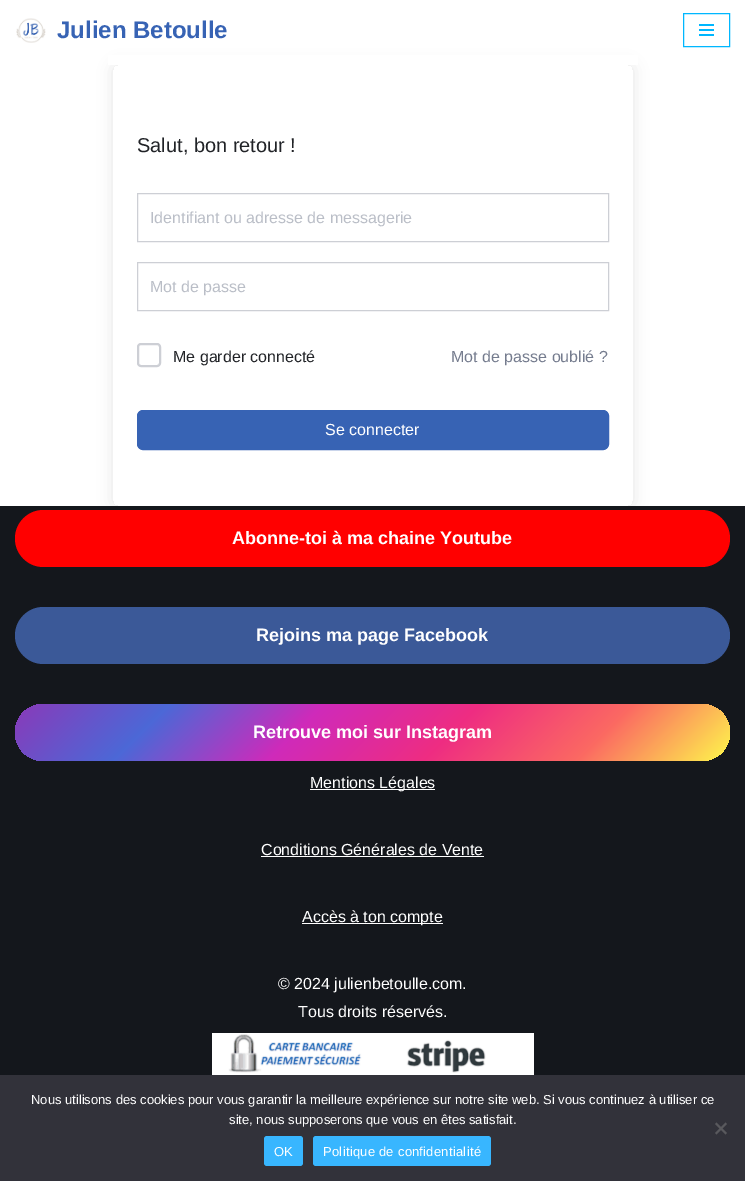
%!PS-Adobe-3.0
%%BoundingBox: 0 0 745 1181
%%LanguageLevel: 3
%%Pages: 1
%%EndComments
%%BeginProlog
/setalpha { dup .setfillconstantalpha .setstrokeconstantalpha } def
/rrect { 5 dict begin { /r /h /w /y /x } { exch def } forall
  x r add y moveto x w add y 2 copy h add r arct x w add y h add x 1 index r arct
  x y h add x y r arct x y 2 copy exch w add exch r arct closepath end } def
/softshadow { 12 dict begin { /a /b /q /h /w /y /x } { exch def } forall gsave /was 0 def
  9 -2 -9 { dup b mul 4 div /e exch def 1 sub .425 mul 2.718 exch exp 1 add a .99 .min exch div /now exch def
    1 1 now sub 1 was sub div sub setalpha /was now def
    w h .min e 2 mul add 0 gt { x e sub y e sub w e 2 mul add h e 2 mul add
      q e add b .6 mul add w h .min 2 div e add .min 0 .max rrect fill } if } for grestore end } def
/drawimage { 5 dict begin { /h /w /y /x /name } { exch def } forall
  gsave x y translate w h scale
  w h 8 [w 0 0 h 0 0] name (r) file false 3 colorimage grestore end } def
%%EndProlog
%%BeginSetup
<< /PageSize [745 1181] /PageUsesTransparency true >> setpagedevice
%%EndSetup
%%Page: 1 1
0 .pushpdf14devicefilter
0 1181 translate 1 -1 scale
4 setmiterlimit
1 setgray
0 0 745 1181 rectfill
gsave
newpath 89 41 moveto 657 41 lineto 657 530 lineto 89 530 lineto closepath 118 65 moveto 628 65 lineto 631 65 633 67 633 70 curveto 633 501 lineto 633 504 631 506 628 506 curveto 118 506 lineto 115 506 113 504 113 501 curveto 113 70 lineto 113 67 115 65 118 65 curveto closepath eoclip newpath
0 setgray
113 65 520 441 5 7.5 0.1 softshadow
grestore
108 55 530 10 rectfill
(images/1.raw) 16 18 30 25 drawimage
0 0.718 1 setrgbcolor
683.5 13.5 46 33 rectstroke
699 24 15 2 rectfill
699 29 15 2 rectfill
699 34 15 2 rectfill
0.804 0.812 0.835 setrgbcolor
137.5 193.5 471 48 rectstroke
137.5 262.5 471 48 rectstroke
2 setlinewidth
138 344 22 22 3 rrect stroke
0.216 0.388 0.706 setrgbcolor
137.5 410.5 471 39 5.5 rrect gsave fill grestore
1 setlinewidth
stroke
0.078 0.09 0.11 setrgbcolor
0 506 745 569 rectfill
1 0 0 setrgbcolor
15 510 715 57 28.5 rrect fill
0.231 0.349 0.596 setrgbcolor
15 607 715 57 28.5 rrect fill
gsave 15 704 715 57 28.5 rrect clip newpath
<< /ShadingType 2 /ColorSpace /DeviceRGB /Coords [179 540 566 926] /Extend [true true] /Function << /FunctionType 3 /Domain [0 1] /Functions [<< /FunctionType 2 /Domain [0 1] /C0 [0.541 0.227 0.725] /C1 [0.298 0.408 0.843] /N 1 >> << /FunctionType 2 /Domain [0 1] /C0 [0.298 0.408 0.843] /C1 [0.812 0.165 0.729] /N 1 >> << /FunctionType 2 /Domain [0 1] /C0 [0.812 0.165 0.729] /C1 [0.933 0.173 0.51] /N 1 >> << /FunctionType 2 /Domain [0 1] /C0 [0.933 0.173 0.51] /C1 [0.984 0.412 0.384] /N 1 >> << /FunctionType 2 /Domain [0 1] /C0 [0.984 0.412 0.384] /C1 [0.996 0.973 0.298] /N 1 >>] /Bounds [0.2 0.4 0.6 0.8] /Encode [0 1 0 1 0 1 0 1 0 1] >> >> shfill grestore
1 setgray
310 789 125 1 rectfill
261 856 223 1 rectfill
302 923 141 1 rectfill
(images/2.raw) 212 1033 322 42 drawimage
0.196 0.196 0.227 setrgbcolor
0 1075 745 106 rectfill
0.349 0.349 0.365 setrgbcolor
newpath 725.5 1122.5 moveto 727 1124 lineto 716.5 1134.5 lineto 715 1133 lineto closepath fill
newpath 715 1124 moveto 716.5 1122.5 lineto 727 1133 lineto 725.5 1134.5 lineto closepath fill
0.22 0.714 1 setrgbcolor
264 1136 39 30 3 rrect fill
313 1136 178 30 3 rrect fill
/LiberationSans-Bold [24 0 0 -24 0 0] selectfont
0.216 0.388 0.706 setrgbcolor
57 38 moveto (Julien Betoulle) show
/LiberationSans-Regular [20 0 0 -20 0 0] selectfont
0.129 0.137 0.153 setrgbcolor
137 152 moveto (Salut, bon retour !) show
/LiberationSans-Regular [16 0 0 -16 0 0] selectfont
0.729 0.745 0.78 setrgbcolor
150 223 moveto (Identifiant ou adresse de messagerie) show
150 292 moveto (Mot de passe) show
0.129 0.137 0.153 setrgbcolor
173 362 moveto (Me garder connecté) show
0.459 0.486 0.557 setrgbcolor
451 362 moveto (Mot de passe oublié ?) show
1 setgray
325 435 moveto (Se connecter) show
/LiberationSans-Bold [18 0 0 -18 0 0] selectfont
232 544 moveto (Abonne-toi à ma chaine Youtube) show
256 641 moveto (Rejoins ma page Facebook) show
253 738 moveto (Retrouve moi sur Instagram) show
/LiberationSans-Regular [16 0 0 -16 0 0] selectfont
310 788 moveto (Mentions Légales) show
261 855 moveto (Conditions Générales de Vente) show
302 922 moveto (Accès à ton compte) show
278 989 moveto (© 2024 julienbetoulle.com.) show
298 1017 moveto (Tous droits réservés.) show
/LiberationSans-Regular [13 0 0 -13 0 0] selectfont
31 1104 moveto (Nous utilisons des cookies pour vous garantir la meilleure expérience sur notre site web. Si vous continuez à utiliser ce) show
229 1124 moveto (site, nous supposerons que vous en êtes satisfait.) show
274 1156 moveto 0.25 0 (OK) ashow
323 1156 moveto 0.25 0 (Politique de confidentialité) ashow
.poppdf14devicefilter showpage
%%EOF
